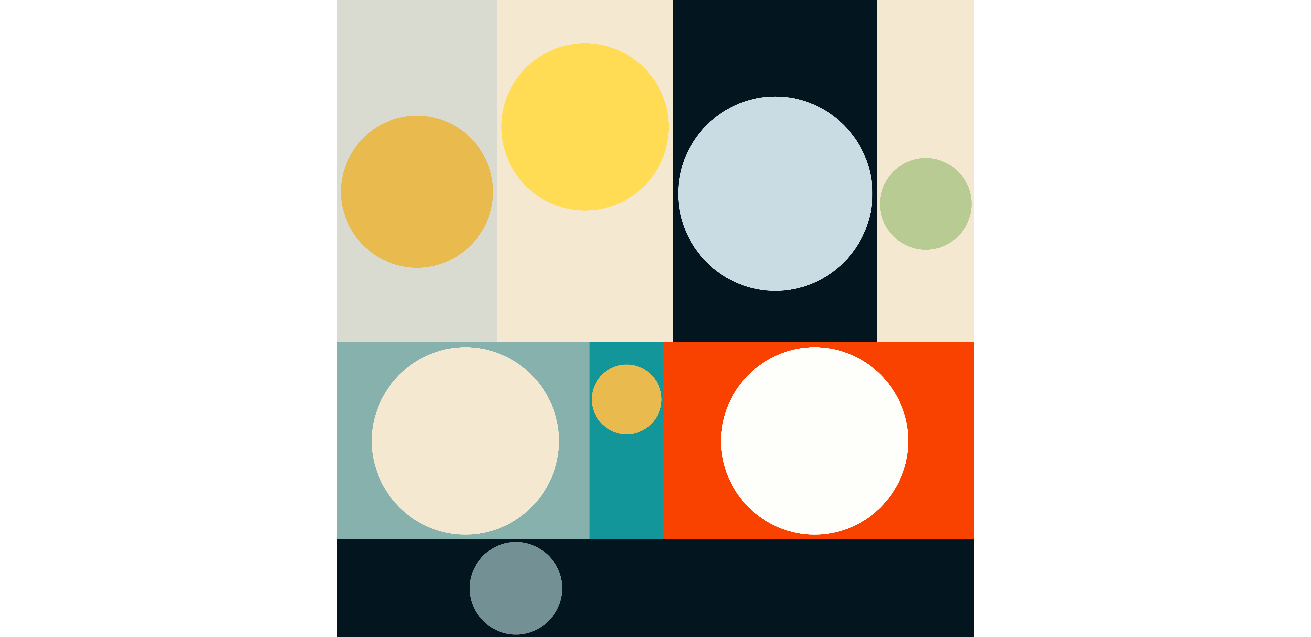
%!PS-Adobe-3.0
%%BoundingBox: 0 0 1311 637
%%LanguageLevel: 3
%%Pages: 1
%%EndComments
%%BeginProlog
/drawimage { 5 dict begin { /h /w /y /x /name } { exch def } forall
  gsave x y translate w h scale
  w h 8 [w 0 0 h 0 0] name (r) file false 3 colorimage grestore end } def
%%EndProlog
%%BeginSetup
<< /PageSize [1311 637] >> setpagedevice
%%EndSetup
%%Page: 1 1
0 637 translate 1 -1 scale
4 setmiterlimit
1 setgray
0 0 1311 637 rectfill
(images/1.raw) 337 0 637 637 drawimage
showpage
%%EOF
